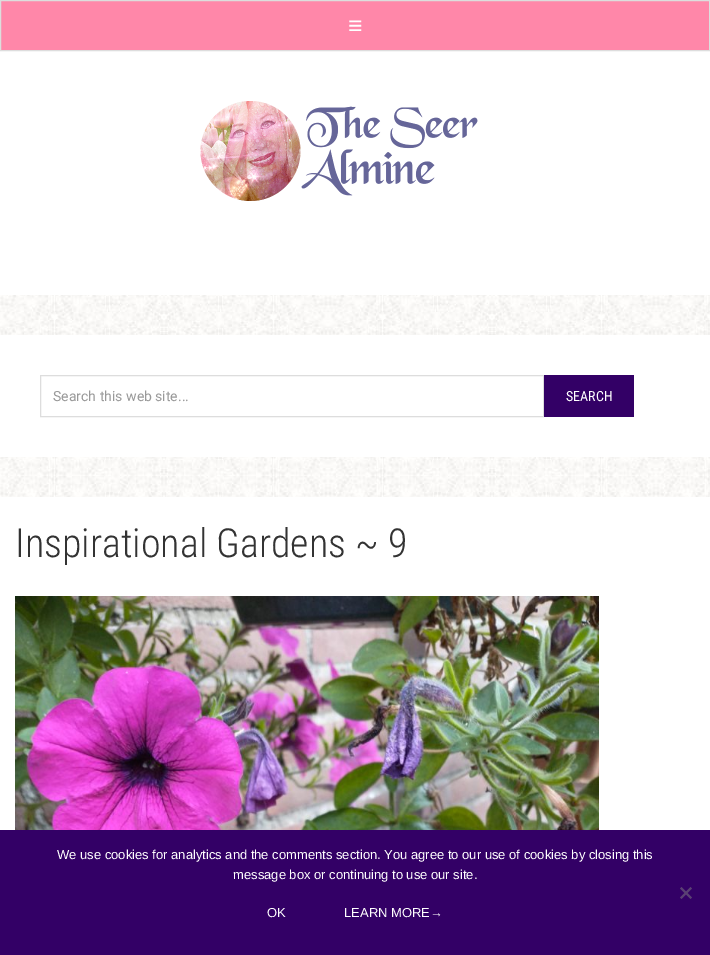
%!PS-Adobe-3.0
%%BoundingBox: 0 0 710 955
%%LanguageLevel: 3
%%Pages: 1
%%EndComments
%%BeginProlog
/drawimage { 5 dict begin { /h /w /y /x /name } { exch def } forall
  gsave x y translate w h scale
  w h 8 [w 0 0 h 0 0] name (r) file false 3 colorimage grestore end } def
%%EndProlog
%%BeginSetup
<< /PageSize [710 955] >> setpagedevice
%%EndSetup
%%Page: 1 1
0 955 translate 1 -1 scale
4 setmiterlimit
1 setgray
0 0 710 955 rectfill
(images/1.raw) 0 295 710 202 drawimage
1 0.529 0.663 setrgbcolor
newpath 0.5 0.5 moveto 709.5 0.5 lineto 709.5 50.5 lineto 0.5 50.5 lineto closepath gsave fill grestore
0.867 setgray
stroke
(images/2.raw) 200 101 278 100 drawimage
1 setgray
0 335 710 122 rectfill
0.867 setgray
40.5 375.5 503 41 rectstroke
0.2 0 0.4 setrgbcolor
544 375 90 42 rectfill
(images/3.raw) 15 596 584 234 drawimage
0 830 710 125 rectfill
0.353 0.251 0.451 setrgbcolor
newpath 690.5 887 moveto 692 888.5 lineto 681.5 899 lineto 680 897.5 lineto closepath fill
newpath 680 888.5 moveto 681.5 887 lineto 692 897.5 lineto 690.5 899 lineto closepath fill
/LiberationSans-Regular [25 0 0 -25 0 0] selectfont
1 setgray
348 34 moveto (≡) show
/Roboto-Regular [14 0 0 -14 0 0] selectfont
0.6 setgray
53 401 moveto (Search this web site...) show
/RobotoCondensed-Regular [14 0 0 -14 0 0] selectfont
1 setgray
566 401 moveto (SEARCH) show
/RobotoCondensed-Light [40 0 0 -40 0 0] selectfont
0.2 setgray
15 557 moveto (Inspirational Gardens ~ 9) show
/LiberationSans-Regular [13 0 0 -13 0 0] selectfont
1 setgray
57 859 moveto (We use cookies for analytics and the comments section. You agree to our use of cookies by closing this) show
233 879 moveto (message box or continuing to use our site.) show
267 917 moveto (OK) show
344 917 moveto (LEARN MORE→) show
showpage
%%EOF
